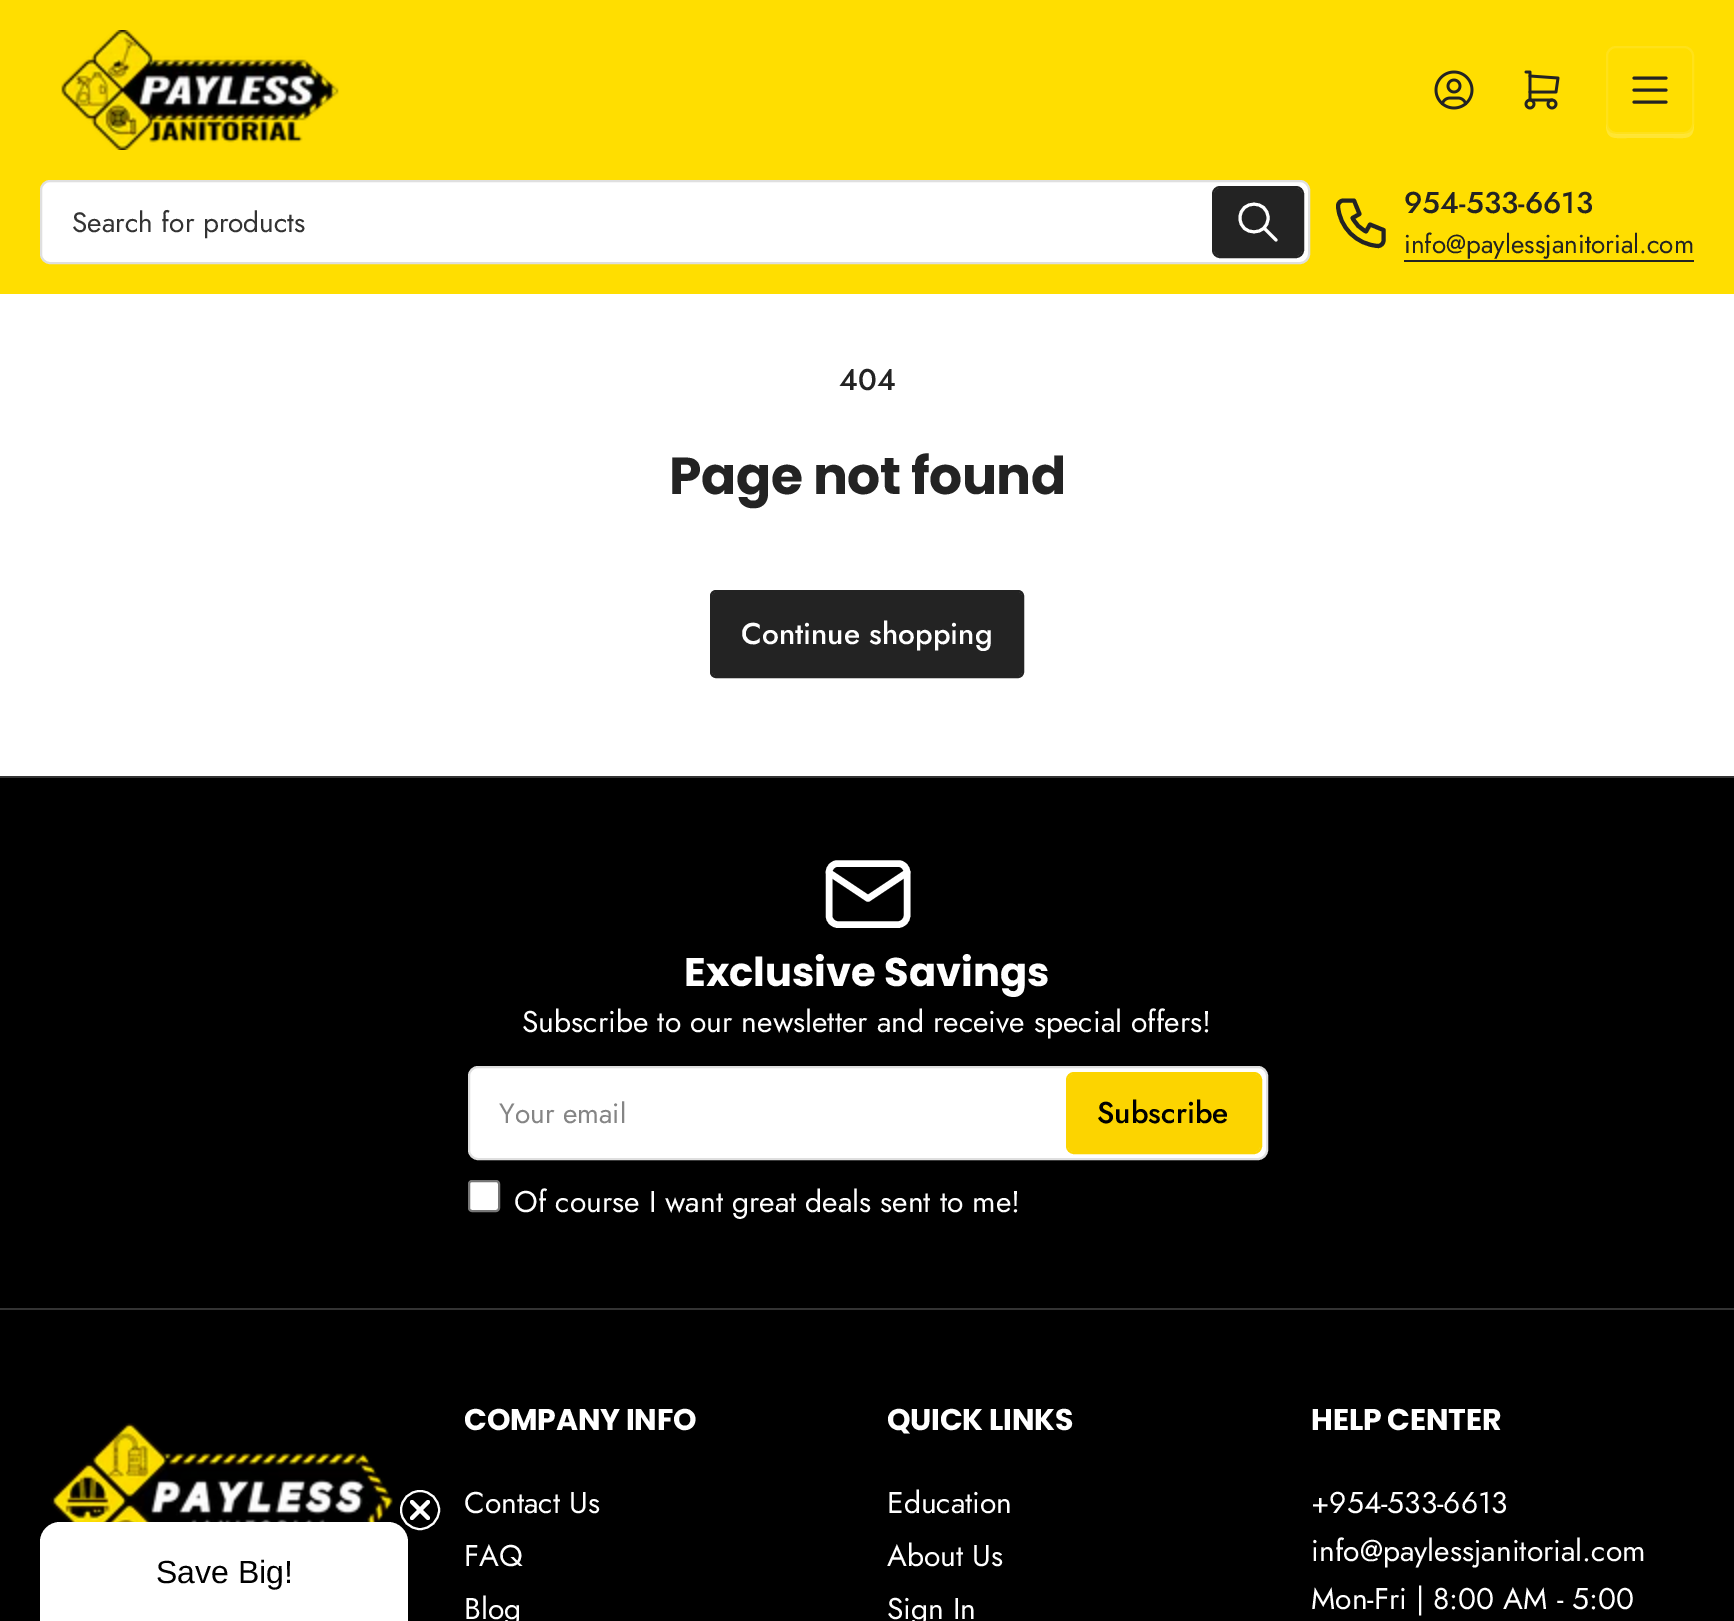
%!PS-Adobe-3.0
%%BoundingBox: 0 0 1734 1621
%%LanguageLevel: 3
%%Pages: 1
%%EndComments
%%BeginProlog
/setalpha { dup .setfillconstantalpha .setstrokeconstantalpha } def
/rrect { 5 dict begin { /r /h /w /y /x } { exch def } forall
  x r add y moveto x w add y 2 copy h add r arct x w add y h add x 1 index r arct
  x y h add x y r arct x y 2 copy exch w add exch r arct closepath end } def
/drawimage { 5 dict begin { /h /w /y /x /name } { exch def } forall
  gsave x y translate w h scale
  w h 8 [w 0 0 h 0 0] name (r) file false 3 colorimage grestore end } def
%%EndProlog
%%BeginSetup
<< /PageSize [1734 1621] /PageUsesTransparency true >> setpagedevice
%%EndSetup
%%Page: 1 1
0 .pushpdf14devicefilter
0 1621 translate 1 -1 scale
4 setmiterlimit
1 setgray
0 0 1734 1621 rectfill
1 0.871 0 setrgbcolor
0 0 1734 294 rectfill
(images/1.raw) 61 30 278 120 drawimage
(images/2.raw) 1434 70 40 40 drawimage
(images/3.raw) 1524 70 36 40 drawimage
1 0.898 0.2 setrgbcolor
newpath 1606 124 moveto 1606 140 1614 138 1627 138 curveto 1673 138 lineto 1686 138 1694 140 1694 124 curveto 1694 130 1690 134 1684 134 curveto 1616 134 lineto 1610 134 1606 130 1606 124 curveto closepath fill
0.1 setalpha
1 setgray
2 setlinewidth
1607 47 86 86 9 rrect stroke
1 setalpha
0.137 setgray
3 setlinewidth
1 setlinecap
1 setlinejoin
newpath 1634 78 moveto 1666 78 lineto 1634 90 moveto 1666 90 lineto 1634 102 moveto 1666 102 lineto stroke
1 setgray
41 181 1268 82 9 rrect gsave fill grestore
0.875 setgray
2 setlinewidth
0 setlinecap
0 setlinejoin
stroke
0.137 setgray
1213 187 90 70 7 rrect stroke
1214 188 88 68 6 rrect fill
1 setgray
3 setlinewidth
1 setlinecap
1 setlinejoin
newpath 1240 218 moveto 1240 236.5 1268 236.5 1268 218 curveto 1268 199.5 1240 199.5 1240 218 curveto 1276 240 moveto 1264 228 lineto stroke
0.137 setgray
4 setlinewidth
newpath 1343.5 200.5 moveto 1354 200.5 lineto 1359.5 214 lineto 1352.5 218 lineto 1355.5 224 1360 228.5 1366 231.5 curveto 1370 224.5 lineto 1383.5 230 lineto 1383.5 240.5 lineto 1383.5 243.5 1381 246 1378 246 curveto 1356.5 244.5 1339.5 227.5 1338 206 curveto 1338 203 1340.5 200.5 1343.5 200.5 curveto stroke
1404 260 290 2 rectfill
2 setlinewidth
0 setlinecap
0 setlinejoin
711 591 312 86 5 rrect stroke
712 592 310 84 4 rrect fill
0 setgray
0 1310 1734 311 rectfill
1 setgray
newpath 60 1522 moveto 388 1522 lineto 399 1522 408 1531 408 1542 curveto 408 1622 lineto 40 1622 lineto 40 1542 lineto 40 1531 49 1522 60 1522 curveto closepath fill
newpath 420 1510 19 0 360 arc closepath stroke
4 setlinewidth
1 setlinecap
1 setlinejoin
newpath 412 1502 moveto 428 1518 lineto 412 1518 moveto 428 1502 lineto closepath stroke
0 setgray
0 778 1734 530 rectfill
0.2 setgray
0 776 1734 2 rectfill
0 1308 1734 2 rectfill
1 setgray
6.5 setlinewidth
newpath 829 872.5 moveto 829 867.5 833 863.5 837.5 863.5 curveto 898.5 863.5 lineto 903 863.5 907 867.5 907 872.5 curveto 907 915.5 lineto 907 920.5 903 924.5 898.5 924.5 curveto 837.5 924.5 lineto 833 924.5 829 920.5 829 915.5 curveto closepath stroke
newpath 829 872.5 moveto 868 898.5 lineto 907 872.5 lineto stroke
469 1067 798 92 9 rrect gsave fill grestore
0.875 setgray
2 setlinewidth
0 setlinecap
0 setlinejoin
stroke
0.988 0.831 0 setrgbcolor
1067 1073 194 80 7 rrect stroke
1068 1074 192 78 6 rrect fill
1 setgray
469 1181 30 30 3 rrect gsave fill grestore
0.463 setgray
stroke
(images/4.raw) 50 1423 343 99 drawimage
/Jost-Regular [28 0 0 -28 0 0] selectfont
0.2 setgray
72 232 moveto (Search for products) show
/Jost-Medium [30 0 0 -30 0 0] selectfont
0.137 setgray
1404 213 moveto (954-533-6613) show
/Jost-Regular [26 0 0 -26 0 0] selectfont
1404 253 moveto (info@paylessjanitorial.com) show
/Jost-Medium [30 0 0 -30 0 0] selectfont
839 390 moveto (404) show
/Poppins-Bold [52 0 0 -52 0 0] selectfont
669 494 moveto -0.5 0 (Page not found) ashow
/Jost-Medium [30 0 0 -30 0 0] selectfont
1 setgray
741 644 moveto (Continue shopping) show
/LiberationSans-Regular [32 0 0 -32 0 0] selectfont
0 setgray
156 1583 moveto (Save Big!) show
/Poppins-Bold [40 0 0 -40 0 0] selectfont
1 setgray
684 986 moveto (Exclusive Savings) show
/Jost-Regular [30 0 0 -30 0 0] selectfont
522 1032 moveto (Subscribe to our newsletter and receive special offers!) show
/Jost-Regular [28 0 0 -28 0 0] selectfont
0.522 setgray
499 1123 moveto (Your email) show
/Jost-Medium [30 0 0 -30 0 0] selectfont
0 setgray
1097 1123 moveto (Subscribe) show
/Jost-Regular [30 0 0 -30 0 0] selectfont
1 setgray
514 1212 moveto (Of course I want great deals sent to me!) show
/Poppins-Bold [30 0 0 -30 0 0] selectfont
464 1430 moveto -0.25 0 (COMPANY INFO) ashow
/Jost-Regular [30 0 0 -30 0 0] selectfont
464 1513 moveto (Contact Us) show
464 1566 moveto (FAQ) show
464 1619 moveto (Blog) show
/Poppins-Bold [30 0 0 -30 0 0] selectfont
887 1430 moveto -0.25 0 (QUICK LINKS) ashow
/Jost-Regular [30 0 0 -30 0 0] selectfont
887 1513 moveto (Education) show
887 1566 moveto (About Us) show
887 1619 moveto (Sign In) show
/Poppins-Bold [30 0 0 -30 0 0] selectfont
1311 1430 moveto -0.25 0 (HELP CENTER) ashow
/Jost-Regular [30 0 0 -30 0 0] selectfont
1311 1513 moveto (+954-533-6613) show
1311 1561 moveto (info@paylessjanitorial.com) show
1311 1609 moveto (Mon-Fri | 8:00 AM - 5:00) show
.poppdf14devicefilter showpage
%%EOF
